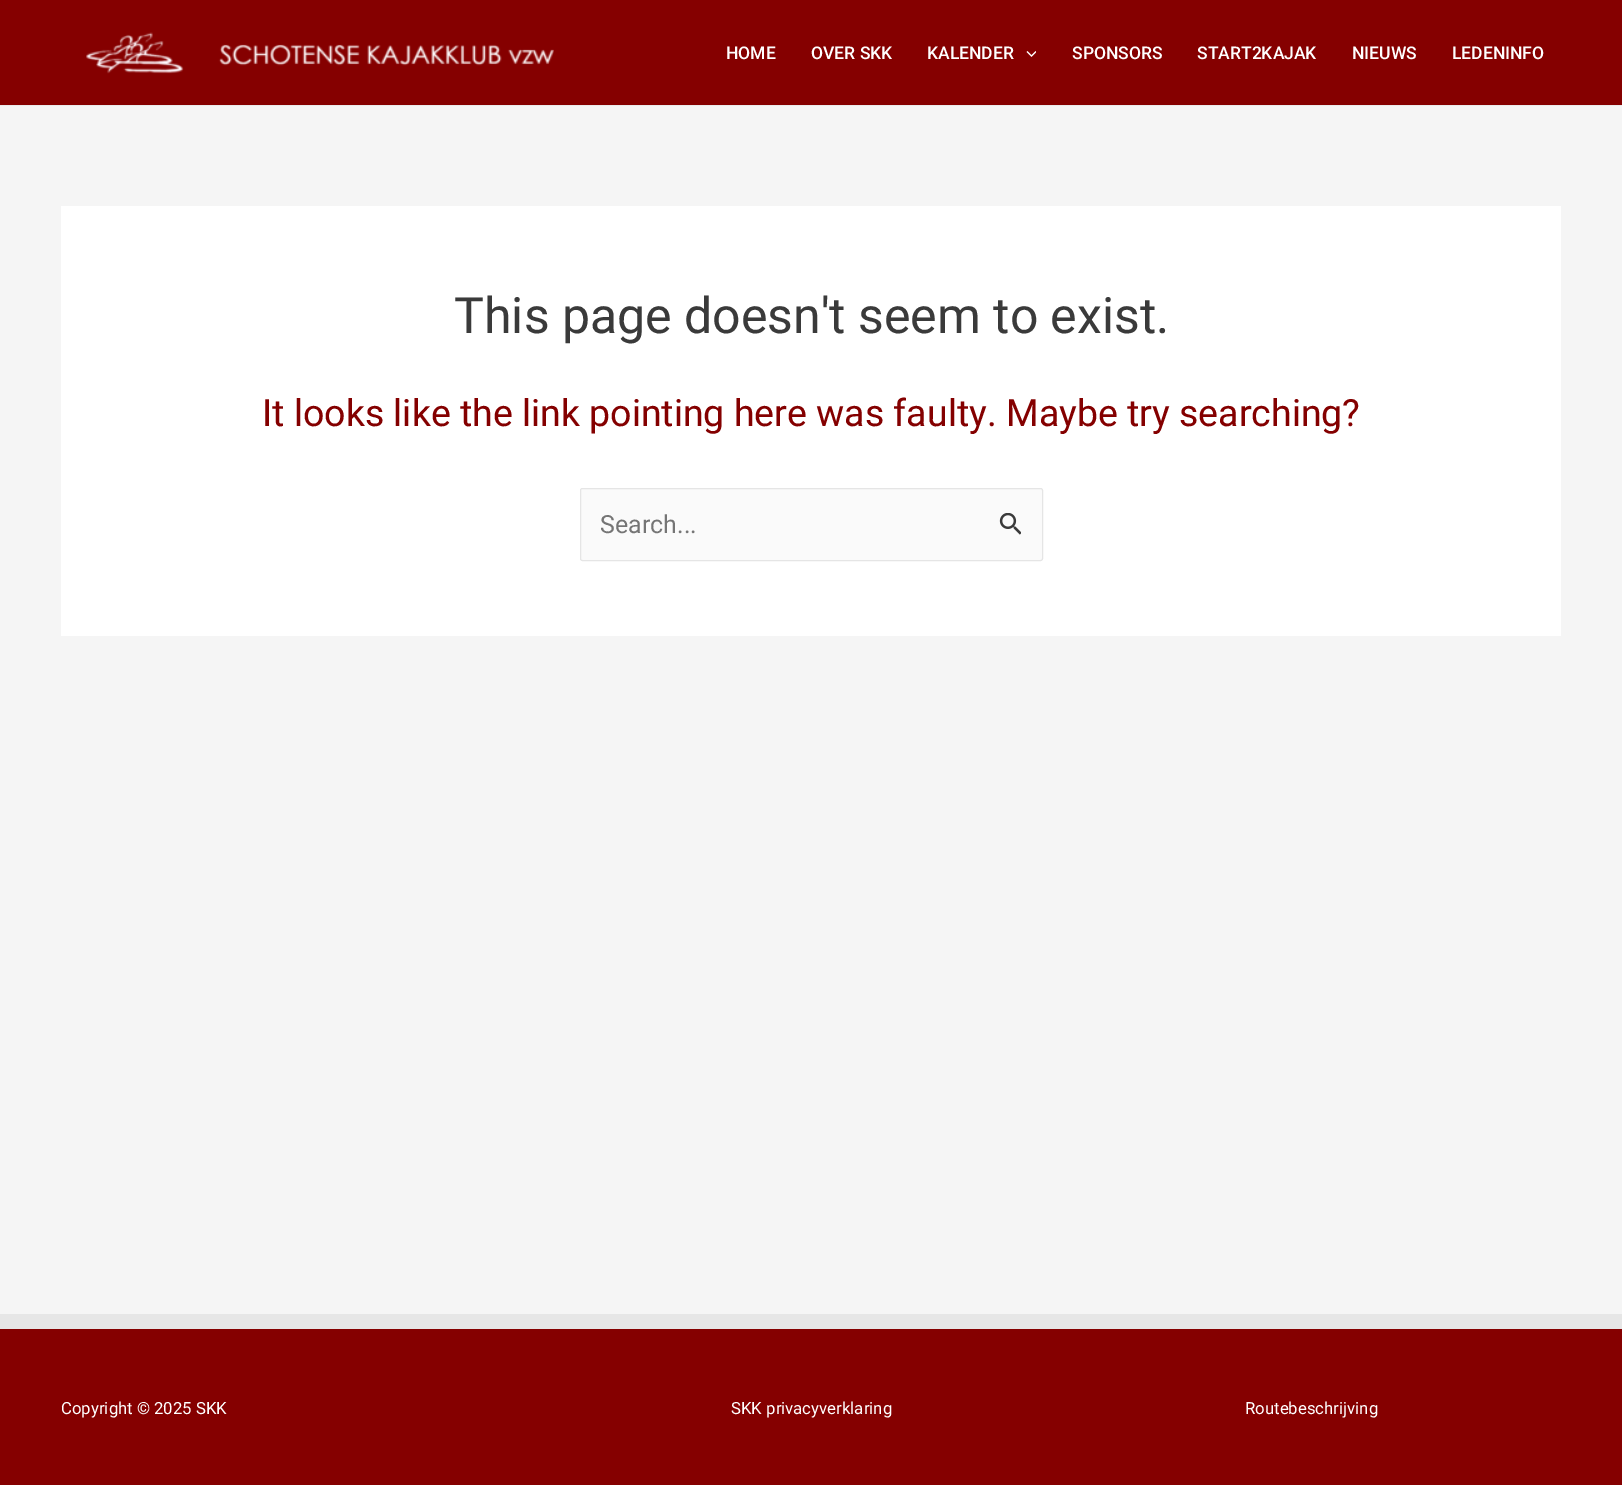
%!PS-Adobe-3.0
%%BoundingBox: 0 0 1622 1485
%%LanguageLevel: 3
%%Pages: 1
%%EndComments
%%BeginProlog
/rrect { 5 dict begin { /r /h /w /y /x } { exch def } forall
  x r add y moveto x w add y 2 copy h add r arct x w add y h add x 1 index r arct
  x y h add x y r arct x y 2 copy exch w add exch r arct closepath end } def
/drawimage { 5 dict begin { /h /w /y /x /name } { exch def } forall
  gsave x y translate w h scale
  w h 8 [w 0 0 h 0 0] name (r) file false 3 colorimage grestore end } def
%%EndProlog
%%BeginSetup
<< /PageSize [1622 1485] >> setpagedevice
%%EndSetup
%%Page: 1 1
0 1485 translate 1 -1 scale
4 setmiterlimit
0.961 setgray
0 0 1622 1485 rectfill
0.522 0 0 setrgbcolor
0 0 1622 105 rectfill
0.918 setgray
0 105 1622 1 rectfill
(images/1.raw) 86 32 468 42 drawimage
(images/2.raw) 1026 51 10 6 drawimage
1 setgray
61 206 1500 430 rectfill
0.98 setgray
580.5 488.5 462 72 2 rrect gsave fill grestore
0.898 setgray
stroke
(images/3.raw) 999 513 22 22 drawimage
0.522 0 0 setrgbcolor
0 1329 1622 156 rectfill
0.902 setgray
0 1314 1622 15 rectfill
/Roboto-Medium [17.5 0 0 -17.5 0 0] selectfont
1 setgray
726 59 moveto (HOME) show
811 59 moveto (OVER SKK) show
927 59 moveto (KALENDER) show
1072 59 moveto (SPONSORS) show
1197 59 moveto (START2KAJAK) show
1352 59 moveto (NIEUWS) show
1452 59 moveto (LEDENINFO) show
/Roboto-Regular [50 0 0 -50 0 0] selectfont
0.227 setgray
454 333 moveto (This page doesn't seem to exist.) show
/Roboto-Regular [37.5 0 0 -37.5 0 0] selectfont
0.518 0 0 setrgbcolor
262 426 moveto (It looks like the link pointing here was faulty. Maybe try searching?) show
/Roboto-Regular [25 0 0 -25 0 0] selectfont
0.459 setgray
600 533 moveto (Search...) show
/Roboto-Regular [16.75 0 0 -16.75 0 0] selectfont
1 setgray
61 1414 moveto (Copyright © 2025 SKK) show
731 1414 moveto (SKK privacyverklaring) show
1245 1414 moveto (Routebeschrijving) show
showpage
%%EOF
